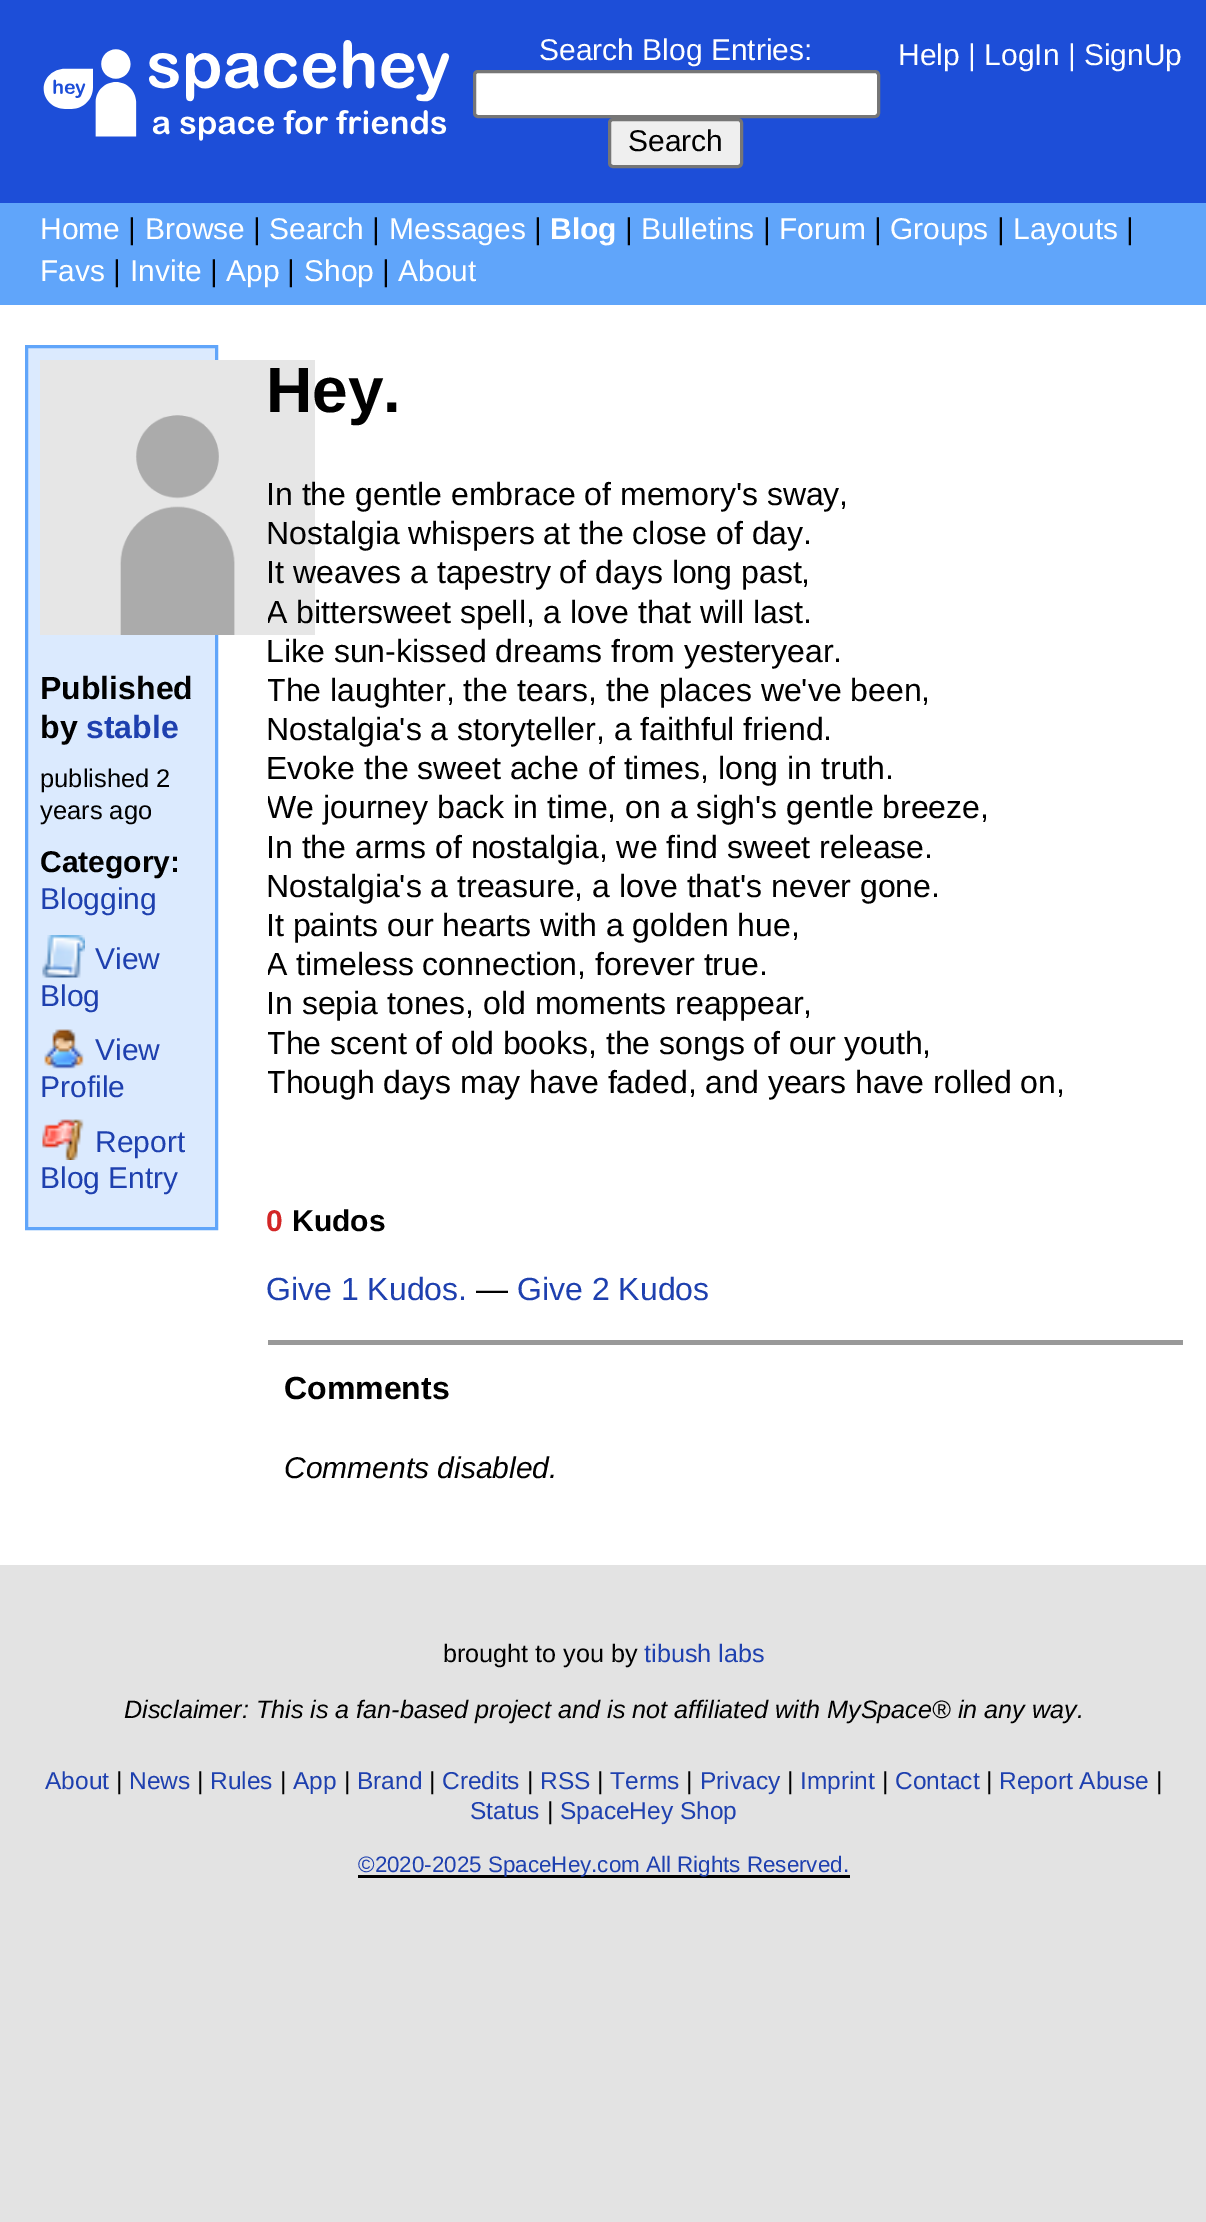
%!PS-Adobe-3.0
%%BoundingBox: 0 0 1206 2222
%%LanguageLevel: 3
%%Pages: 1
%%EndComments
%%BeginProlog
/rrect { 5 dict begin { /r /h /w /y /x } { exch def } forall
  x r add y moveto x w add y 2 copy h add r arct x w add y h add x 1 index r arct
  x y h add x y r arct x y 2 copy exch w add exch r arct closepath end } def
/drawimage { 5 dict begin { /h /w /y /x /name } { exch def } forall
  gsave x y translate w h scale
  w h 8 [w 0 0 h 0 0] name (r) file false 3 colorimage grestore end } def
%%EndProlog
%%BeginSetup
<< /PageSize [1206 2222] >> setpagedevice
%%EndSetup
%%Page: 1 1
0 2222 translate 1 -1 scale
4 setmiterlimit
0.89 setgray
0 0 1206 2222 rectfill
0.114 0.306 0.847 setrgbcolor
0 0 1206 203 rectfill
(images/1.raw) 43 40 407 101 drawimage
1 setgray
474.5 71.5 404 45 3.5 rrect gsave fill grestore
0.463 setgray
3 setlinewidth
stroke
0.937 setgray
609.5 119.5 132 47 3.5 rrect gsave fill grestore
0.463 setgray
stroke
0.376 0.647 0.98 setrgbcolor
0 203 1206 102 rectfill
1 setgray
0 305 1206 1260 rectfill
0.859 0.918 0.996 setrgbcolor
newpath 26.5 346.5 moveto 216.5 346.5 lineto 216.5 1228.5 lineto 26.5 1228.5 lineto closepath gsave fill grestore
0.376 0.647 0.98 setrgbcolor
stroke
(images/2.raw) 40 360 275 275 drawimage
(images/3.raw) 42 935 43 43 drawimage
(images/4.raw) 44 1029 40 40 drawimage
(images/5.raw) 42 1119 42 41 drawimage
0.6 setgray
268 1340 915 5 rectfill
0 setgray
358 1875 492 3 rectfill
/LiberationSans-Regular [30 0 0 -30 0 0] selectfont
1 setgray
539 60 moveto (Search Blog Entries:) show
0 setgray
628 151 moveto (Search) show
1 setgray
898 65 moveto (Help | LogIn | SignUp) show
40 239 moveto (Home) show
0 setgray
128 239 moveto (|) show
1 setgray
145 239 moveto (Browse) show
0 setgray
253 239 moveto (|) show
1 setgray
269 239 moveto (Search) show
0 setgray
372 239 moveto (|) show
1 setgray
389 239 moveto (Messages) show
0 setgray
534 239 moveto (|) show
/LiberationSans-Bold [30 0 0 -30 0 0] selectfont
1 setgray
550 239 moveto (Blog) show
/LiberationSans-Regular [30 0 0 -30 0 0] selectfont
0 setgray
625 239 moveto (|) show
1 setgray
641 239 moveto (Bulletins) show
0 setgray
763 239 moveto (|) show
1 setgray
779 239 moveto (Forum) show
0 setgray
874 239 moveto (|) show
1 setgray
890 239 moveto (Groups) show
0 setgray
997 239 moveto (|) show
1 setgray
1013 239 moveto (Layouts) show
0 setgray
1126 239 moveto (|) show
1 setgray
40 281 moveto (Favs) show
0 setgray
113 281 moveto (|) show
1 setgray
130 281 moveto (Invite) show
0 setgray
210 281 moveto (|) show
1 setgray
226 281 moveto (App) show
0 setgray
287 281 moveto (|) show
1 setgray
304 281 moveto (Shop) show
0 setgray
382 281 moveto (|) show
1 setgray
398 281 moveto (About) show
/LiberationSans-Bold [32 0 0 -32 0 0] selectfont
0 setgray
40 699 moveto (Published) show
40 738 moveto (by) show
0.118 0.251 0.686 setrgbcolor
86 738 moveto (stable) show
/LiberationSans-Regular [25.5 0 0 -25.5 0 0] selectfont
0 setgray
40 787 moveto (published 2) show
40 819 moveto (years ago) show
/LiberationSans-Bold [30 0 0 -30 0 0] selectfont
40 872 moveto (Category:) show
/LiberationSans-Regular [30 0 0 -30 0 0] selectfont
0.118 0.251 0.686 setrgbcolor
40 909 moveto (Blogging) show
95 969 moveto (View) show
40 1006 moveto (Blog) show
95 1060 moveto (View) show
40 1097 moveto (Profile) show
95 1152 moveto (Report) show
40 1188 moveto (Blog Entry) show
/LiberationSans-Bold [64 0 0 -64 0 0] selectfont
0 setgray
266 412 moveto (Hey.) show
/LiberationSans-Regular [32 0 0 -32 0 0] selectfont
266 505 moveto (In the gentle embrace of memory's sway,) show
266 544 moveto (Nostalgia whispers at the close of day.) show
266 583 moveto (It weaves a tapestry of days long past,) show
gsave
268 443 915 692 rectclip
266 623 moveto (A bittersweet spell, a love that will last.) show
grestore
266 662 moveto (Like sun-kissed dreams from yesteryear.) show
gsave
268 443 915 692 rectclip
266 701 moveto (The laughter, the tears, the places we've been,) show
grestore
266 740 moveto (Nostalgia's a storyteller, a faithful friend.) show
266 779 moveto (Evoke the sweet ache of times, long in truth.) show
gsave
268 443 915 692 rectclip
266 818 moveto (We journey back in time, on a sigh's gentle breeze,) show
grestore
266 858 moveto (In the arms of nostalgia, we find sweet release.) show
266 897 moveto (Nostalgia's a treasure, a love that's never gone.) show
266 936 moveto (It paints our hearts with a golden hue,) show
gsave
268 443 915 692 rectclip
266 975 moveto (A timeless connection, forever true.) show
grestore
266 1014 moveto (In sepia tones, old moments reappear,) show
gsave
268 443 915 692 rectclip
266 1054 moveto (The scent of old books, the songs of our youth,) show
266 1093 moveto (Though days may have faded, and years have rolled on,) show
grestore
/LiberationSans-Bold [30 0 0 -30 0 0] selectfont
0.827 0.149 0.149 setrgbcolor
266 1231 moveto (0) show
0 setgray
292 1231 moveto (Kudos) show
/LiberationSans-Regular [32 0 0 -32 0 0] selectfont
0.118 0.251 0.686 setrgbcolor
266 1300 moveto (Give 1 Kudos.) show
0 setgray
476 1300 moveto (—) show
0.118 0.251 0.686 setrgbcolor
517 1300 moveto (Give 2 Kudos) show
/LiberationSans-Bold [32 0 0 -32 0 0] selectfont
0 setgray
284 1399 moveto (Comments) show
/LiberationSans-Italic [30 0 0 -30 0 0] selectfont
284 1478 moveto (Comments disabled.) show
/LiberationSans-Regular [25.2 0 0 -25.2 0 0] selectfont
443 1662 moveto (brought to you by) show
0.118 0.251 0.686 setrgbcolor
644 1662 moveto (tibush labs) show
/LiberationSans-Italic [25.2 0 0 -25.2 0 0] selectfont
0 setgray
124 1718 moveto (Disclaimer: This is a fan-based project and is not affiliated with MySpace® in any way.) show
/LiberationSans-Regular [24.5 0 0 -24.5 0 0] selectfont
0.118 0.251 0.686 setrgbcolor
45 1789 moveto (About) show
0 setgray
116 1789 moveto (|) show
0.118 0.251 0.686 setrgbcolor
129 1789 moveto (News) show
0 setgray
197 1789 moveto (|) show
0.118 0.251 0.686 setrgbcolor
210 1789 moveto (Rules) show
0 setgray
280 1789 moveto (|) show
0.118 0.251 0.686 setrgbcolor
293 1789 moveto (App) show
0 setgray
344 1789 moveto (|) show
0.118 0.251 0.686 setrgbcolor
357 1789 moveto (Brand) show
0 setgray
429 1789 moveto (|) show
0.118 0.251 0.686 setrgbcolor
442 1789 moveto (Credits) show
0 setgray
527 1789 moveto (|) show
0.118 0.251 0.686 setrgbcolor
540 1789 moveto (RSS) show
0 setgray
597 1789 moveto (|) show
0.118 0.251 0.686 setrgbcolor
610 1789 moveto (Terms) show
0 setgray
686 1789 moveto (|) show
0.118 0.251 0.686 setrgbcolor
700 1789 moveto (Privacy) show
0 setgray
787 1789 moveto (|) show
0.118 0.251 0.686 setrgbcolor
800 1789 moveto (Imprint) show
0 setgray
882 1789 moveto (|) show
0.118 0.251 0.686 setrgbcolor
895 1789 moveto (Contact) show
0 setgray
986 1789 moveto (|) show
0.118 0.251 0.686 setrgbcolor
999 1789 moveto (Report Abuse) show
0 setgray
1156 1789 moveto (|) show
0.118 0.251 0.686 setrgbcolor
470 1819 moveto (Status) show
0 setgray
547 1819 moveto (|) show
0.118 0.251 0.686 setrgbcolor
560 1819 moveto (SpaceHey Shop) show
/LiberationSans-Regular [22.4 0 0 -22.4 0 0] selectfont
358 1872 moveto (©2020-2025 SpaceHey.com All Rights Reserved.) show
showpage
%%EOF
